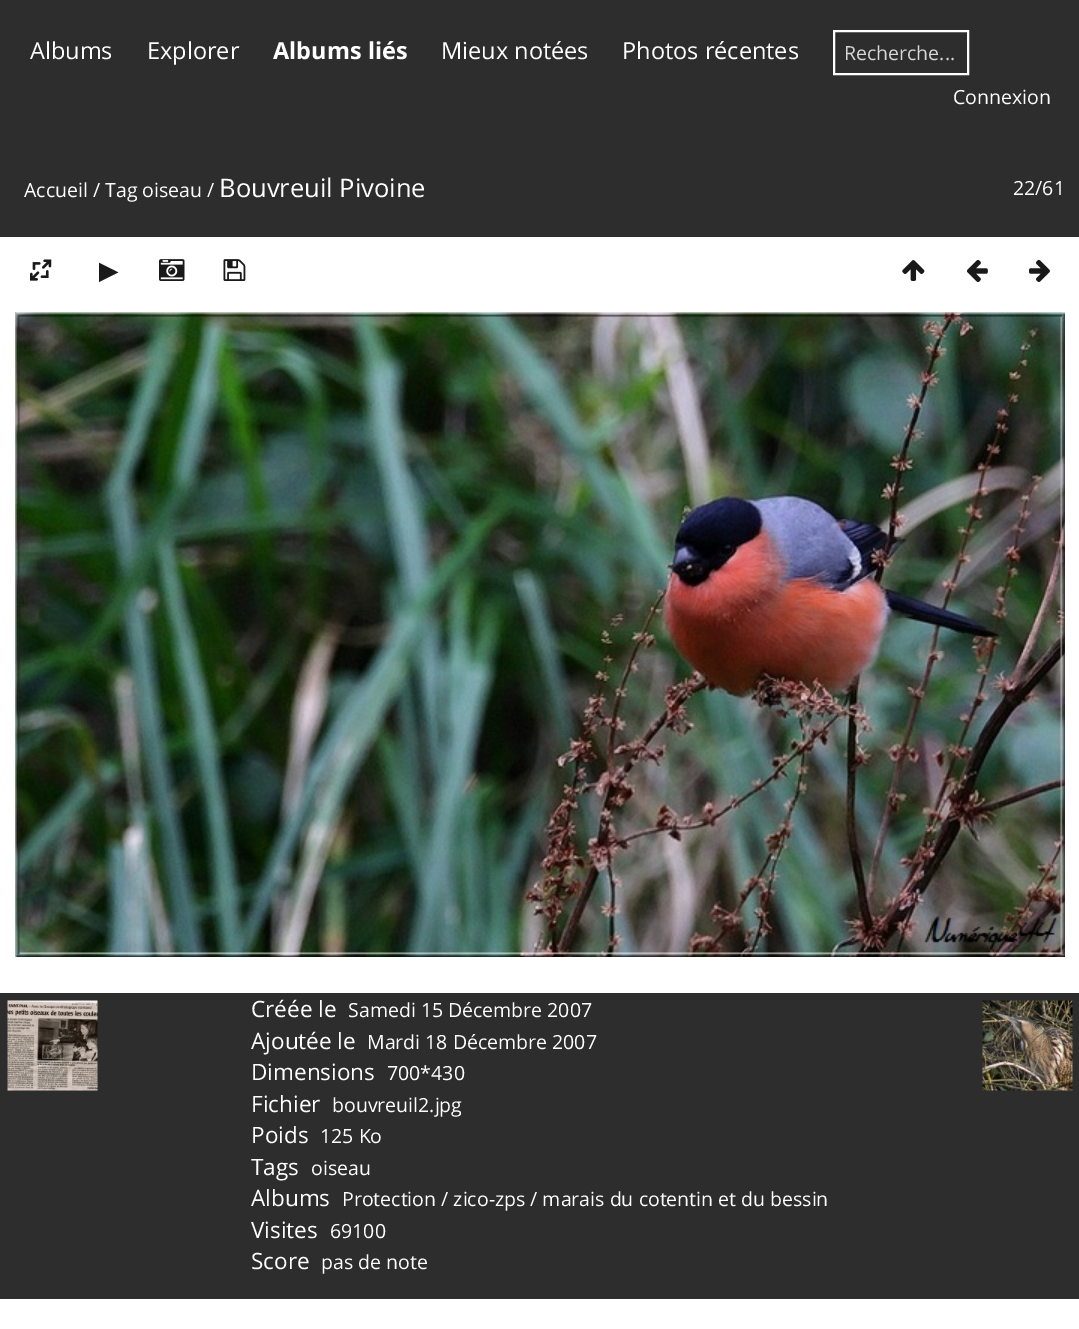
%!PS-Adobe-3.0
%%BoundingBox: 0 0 1079 1329
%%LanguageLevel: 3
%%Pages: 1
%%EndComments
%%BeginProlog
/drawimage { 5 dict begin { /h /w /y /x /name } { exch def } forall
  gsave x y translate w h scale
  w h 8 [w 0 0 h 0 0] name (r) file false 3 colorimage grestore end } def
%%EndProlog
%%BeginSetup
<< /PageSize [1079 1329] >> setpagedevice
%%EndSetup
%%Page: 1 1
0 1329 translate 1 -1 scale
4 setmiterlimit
1 setgray
0 0 1079 1329 rectfill
0.176 setgray
0 0 1079 237 rectfill
1 setgray
2 setlinewidth
834 31 134 43 rectstroke
(images/1.raw) 30 259 22 22 drawimage
(images/2.raw) 159 259 26 22 drawimage
(images/3.raw) 223 259 23 22 drawimage
(images/4.raw) 902 260 23 21 drawimage
(images/5.raw) 967 260 21 22 drawimage
(images/6.raw) 1029 259 21 23 drawimage
(images/7.raw) 15 312 1050 645 drawimage
0.176 setgray
0 993 1079 306 rectfill
(images/8.raw) 7 1000 91 91 drawimage
(images/9.raw) 982 1000 91 91 drawimage
/OpenSans-Regular [23.5 0 0 -23.5 0 0] selectfont
1 setgray
30 59 moveto (Albums) show
147 59 moveto (Explorer) show
/OpenSans-Bold [23.5 0 0 -23.5 0 0] selectfont
273 59 moveto (Albums liés) show
/OpenSans-Regular [23.5 0 0 -23.5 0 0] selectfont
441 59 moveto (Mieux notées) show
622 59 moveto (Photos récentes) show
/OpenSans-Regular [19.5 0 0 -19.5 0 0] selectfont
0.839 setgray
844 60 moveto (Recherche...) show
1 setgray
953 104 moveto (Connexion) show
24 197 moveto (Accueil / Tag oiseau /) show
/OpenSans-Regular [25.5 0 0 -25.5 0 0] selectfont
219 197 moveto (Bouvreuil Pivoine) show
/OpenSans-Regular [19.5 0 0 -19.5 0 0] selectfont
1013 195 moveto (22/61) show
/DejaVuSans-Regular [25.5 0 0 -25.5 0 0] selectfont
0.102 setgray
99 279 moveto (▶) show
/OpenSans-Regular [22.5 0 0 -22.5 0 0] selectfont
1 setgray
251 1017 moveto (Créée le) show
/OpenSans-Regular [19.5 0 0 -19.5 0 0] selectfont
348 1017 moveto (Samedi 15 Décembre 2007) show
/OpenSans-Regular [22.5 0 0 -22.5 0 0] selectfont
251 1049 moveto (Ajoutée le) show
/OpenSans-Regular [19.5 0 0 -19.5 0 0] selectfont
367 1049 moveto (Mardi 18 Décembre 2007) show
/OpenSans-Regular [22.5 0 0 -22.5 0 0] selectfont
251 1080 moveto (Dimensions) show
/OpenSans-Regular [19.5 0 0 -19.5 0 0] selectfont
387 1080 moveto (700*430) show
/OpenSans-Regular [22.5 0 0 -22.5 0 0] selectfont
251 1112 moveto (Fichier) show
/OpenSans-Regular [19.5 0 0 -19.5 0 0] selectfont
332 1112 moveto (bouvreuil2.jpg) show
/OpenSans-Regular [22.5 0 0 -22.5 0 0] selectfont
251 1143 moveto (Poids) show
/OpenSans-Regular [19.5 0 0 -19.5 0 0] selectfont
320 1143 moveto (125 Ko) show
/OpenSans-Regular [22.5 0 0 -22.5 0 0] selectfont
251 1175 moveto (Tags) show
/OpenSans-Regular [19.5 0 0 -19.5 0 0] selectfont
311 1175 moveto (oiseau) show
/OpenSans-Regular [22.5 0 0 -22.5 0 0] selectfont
251 1206 moveto (Albums) show
/OpenSans-Regular [19.5 0 0 -19.5 0 0] selectfont
342 1206 moveto (Protection / zico-zps / marais du cotentin et du bessin) show
/OpenSans-Regular [22.5 0 0 -22.5 0 0] selectfont
251 1238 moveto (Visites) show
/OpenSans-Regular [19.5 0 0 -19.5 0 0] selectfont
330 1238 moveto (69100) show
/OpenSans-Regular [22.5 0 0 -22.5 0 0] selectfont
251 1269 moveto (Score) show
/OpenSans-Regular [19.5 0 0 -19.5 0 0] selectfont
321 1269 moveto (pas de note) show
showpage
%%EOF
